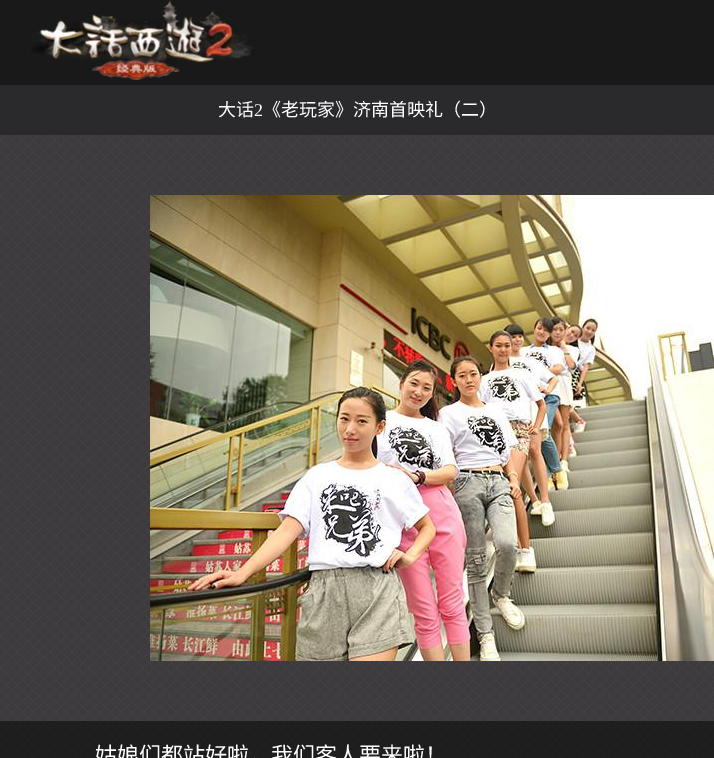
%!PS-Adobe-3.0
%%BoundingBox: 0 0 714 758
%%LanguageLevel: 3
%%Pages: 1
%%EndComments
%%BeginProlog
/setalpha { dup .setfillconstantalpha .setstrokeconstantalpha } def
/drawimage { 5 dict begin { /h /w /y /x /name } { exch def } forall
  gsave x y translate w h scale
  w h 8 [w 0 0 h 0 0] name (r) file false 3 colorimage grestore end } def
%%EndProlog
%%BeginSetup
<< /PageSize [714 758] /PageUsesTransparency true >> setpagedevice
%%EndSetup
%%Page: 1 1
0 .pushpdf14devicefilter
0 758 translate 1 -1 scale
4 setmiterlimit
0.098 setgray
0 0 714 758 rectfill
(images/1.raw) 31 0 224 80 drawimage
0.165 0.161 0.169 setrgbcolor
0 85 714 50 rectfill
(images/2.raw) 0 135 714 623 drawimage
(images/3.raw) 150 195 564 466 drawimage
0.5 setalpha
0 setgray
0 721 714 37 rectfill
/NotoSansCJKSC-Regular [18 0 0 -18 0 0] selectfont
1 setalpha
1 setgray
218 116 moveto (大话) show
/LiberationSerif-Regular [18 0 0 -18 0 0] selectfont
254 116 moveto (2) show
/NotoSansCJKSC-Regular [18 0 0 -18 0 0] selectfont
263 116 moveto (《老玩家》济南首映礼（二）) show
/NotoSansCJKSC-Regular [22 0 0 -22 0 0] selectfont
95 763 moveto (姑娘们都站好啦，我们客人要来啦！) show
.poppdf14devicefilter showpage
%%EOF
